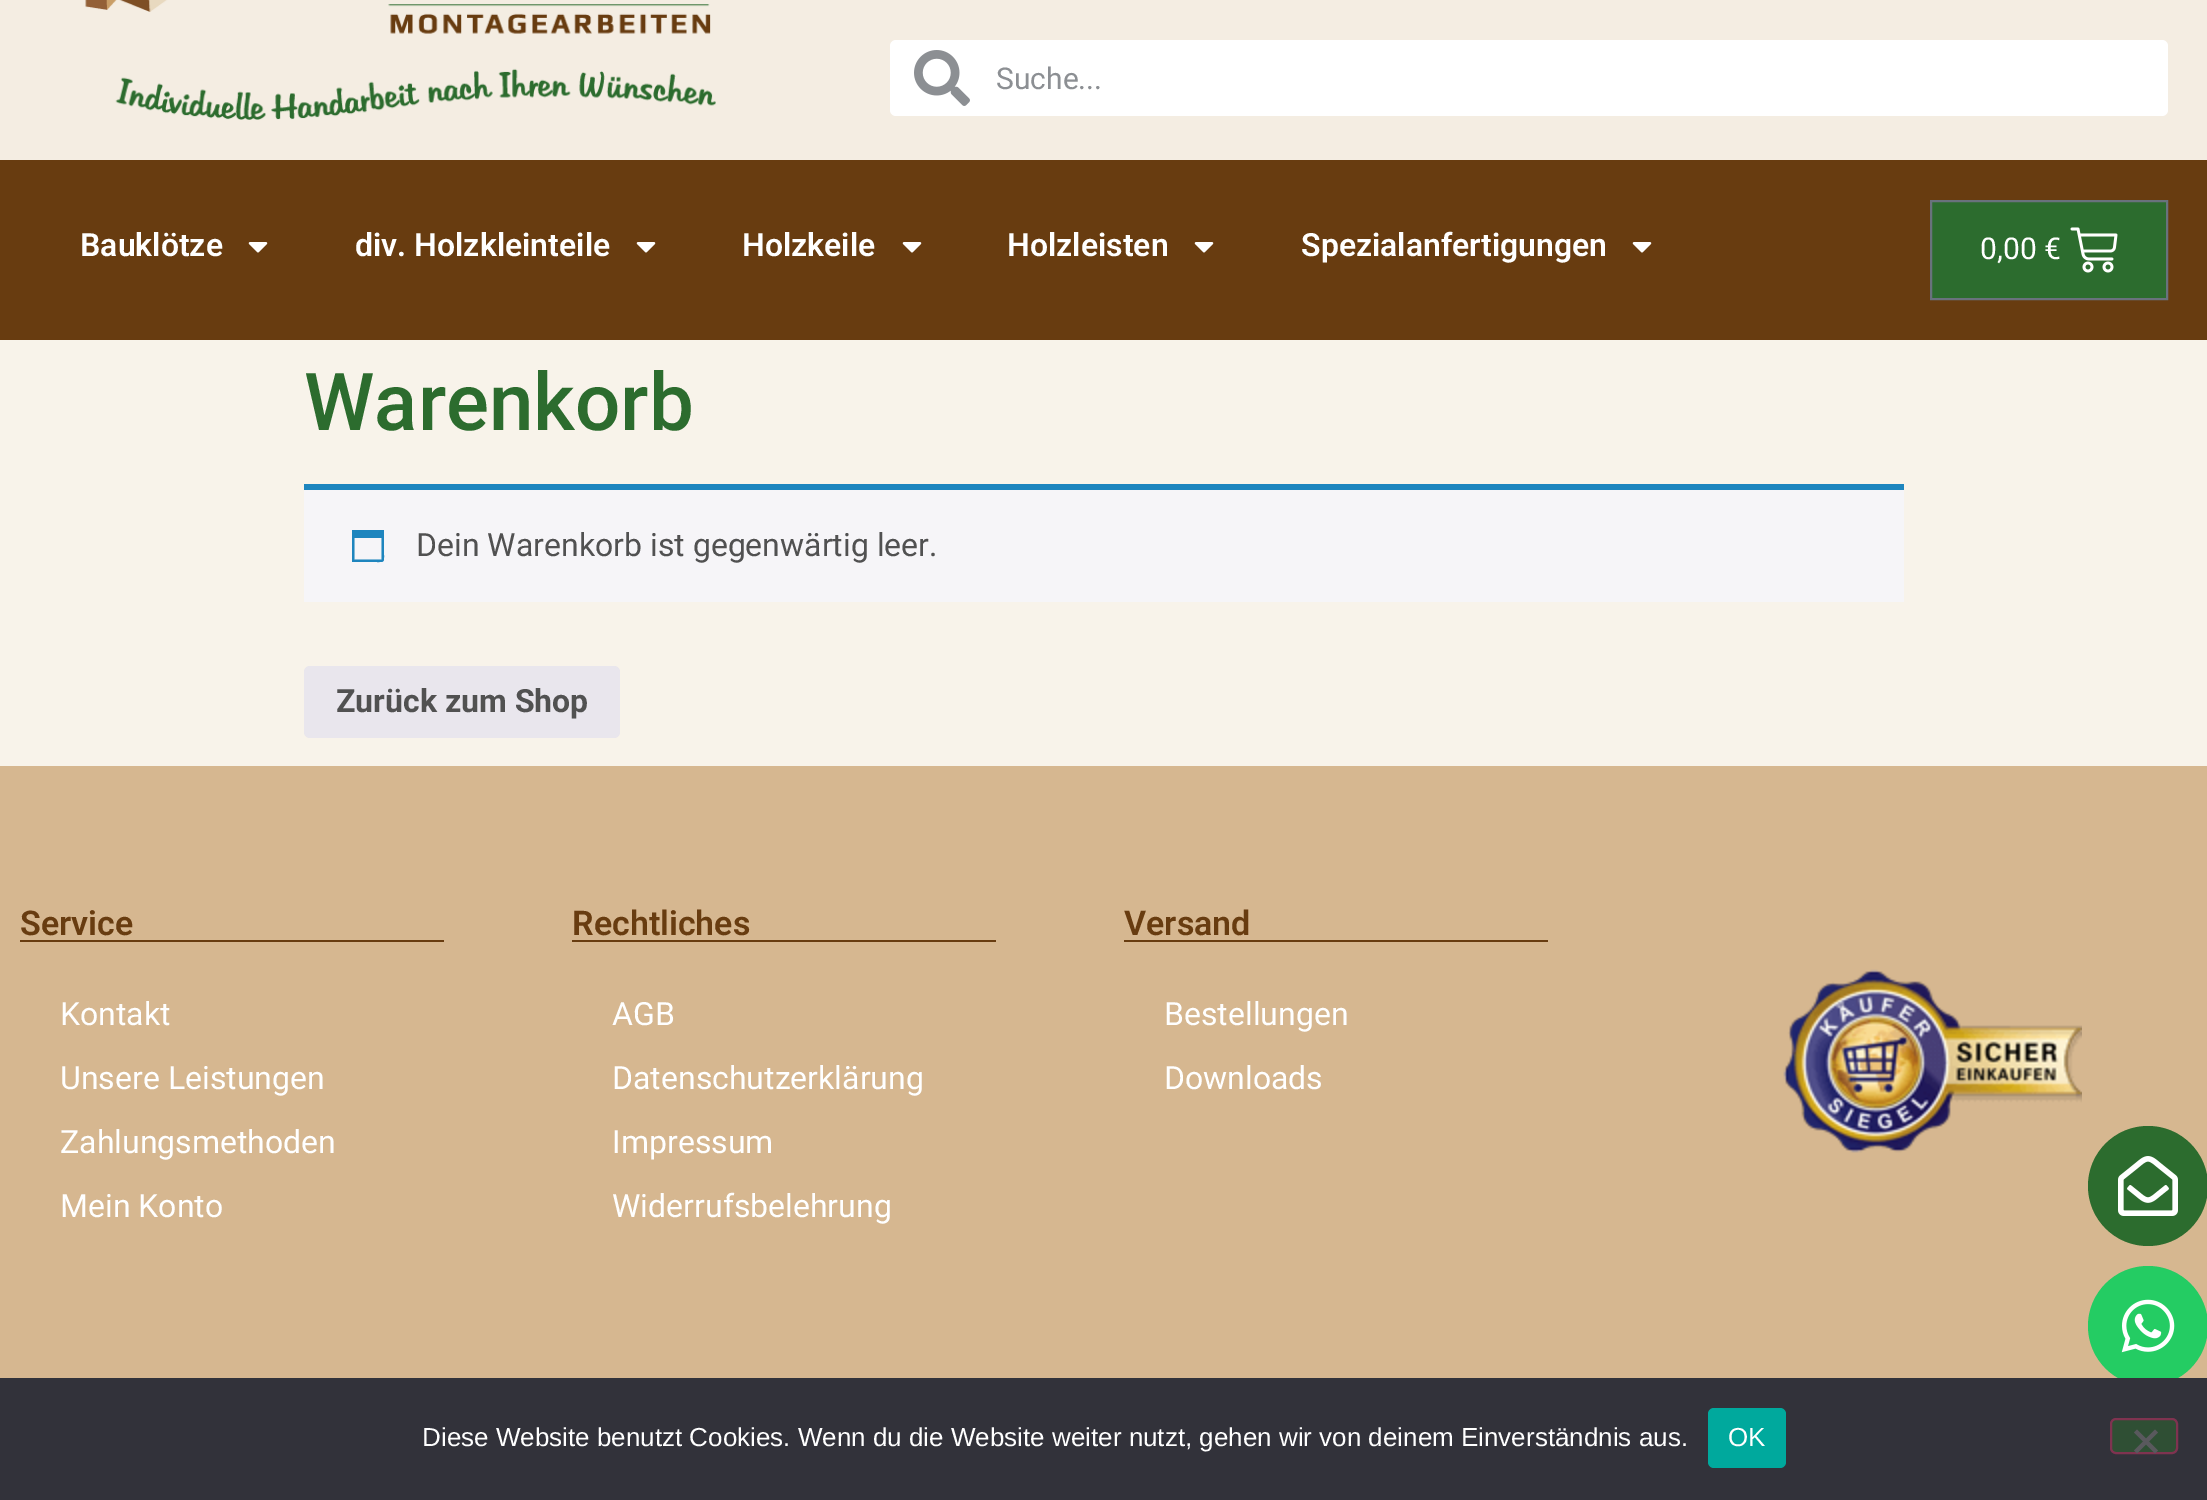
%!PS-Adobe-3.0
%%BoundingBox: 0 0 2207 1500
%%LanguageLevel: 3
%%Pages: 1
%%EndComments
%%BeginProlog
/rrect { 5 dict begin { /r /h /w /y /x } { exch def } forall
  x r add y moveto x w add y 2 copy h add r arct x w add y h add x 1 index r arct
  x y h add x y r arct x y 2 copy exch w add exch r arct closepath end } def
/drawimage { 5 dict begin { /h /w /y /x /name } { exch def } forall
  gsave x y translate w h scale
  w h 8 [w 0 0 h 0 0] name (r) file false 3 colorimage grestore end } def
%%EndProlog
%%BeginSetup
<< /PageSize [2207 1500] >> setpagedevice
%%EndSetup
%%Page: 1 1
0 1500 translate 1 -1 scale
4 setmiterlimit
0.973 0.953 0.918 setrgbcolor
0 0 2207 1500 rectfill
0.957 0.929 0.886 setrgbcolor
0 0 2207 160 rectfill
(images/1.raw) 85 0 631 120 drawimage
1 setgray
890 40 1278 76 6 rrect fill
(images/2.raw) 914 50 56 56 drawimage
0.408 0.235 0.063 setrgbcolor
0 160 2207 180 rectfill
(images/3.raw) 248 242 20 11 drawimage
(images/3.raw) 636 242 20 11 drawimage
(images/3.raw) 902 242 20 11 drawimage
(images/3.raw) 1194 242 20 11 drawimage
(images/3.raw) 1632 242 20 11 drawimage
0.173 0.424 0.18 setrgbcolor
newpath 1931 201 moveto 2167 201 lineto 2167 299 lineto 1931 299 lineto closepath gsave fill grestore
0.412 0.447 0.49 setrgbcolor
2 setlinewidth
stroke
(images/4.raw) 2070 227 48 46 drawimage
0.965 0.961 0.973 setrgbcolor
304 490 1600 112 rectfill
0.118 0.522 0.745 setrgbcolor
304 484 1600 6 rectfill
newpath 381.5 538 moveto 354.5 538 lineto 354.5 559.5 lineto 381.5 559.5 lineto closepath 384 530 moveto 384 554.5 lineto 384 562.5 384.5 562 376.5 562 curveto 352 562 lineto 352 530 lineto closepath fill
0.914 0.902 0.929 setrgbcolor
304 666 316 72 6 rrect fill
0.839 0.718 0.565 setrgbcolor
0 766 2207 612 rectfill
0.173 0.424 0.18 setrgbcolor
newpath 2148 1186 60 0 360 arc closepath fill
(images/5.raw) 2118 1156 60 60 drawimage
0.141 0.8 0.388 setrgbcolor
newpath 2148 1326 60 0 360 arc closepath fill
(images/6.raw) 2121 1299 54 54 drawimage
0.408 0.235 0.063 setrgbcolor
20 940 424 2 rectfill
572 940 424 2 rectfill
1124 940 424 2 rectfill
(images/7.raw) 1783 969 299 184 drawimage
0.196 0.196 0.227 setrgbcolor
0 1378 2207 122 rectfill
0 0.663 0.616 setrgbcolor
1708 1408 78 60 6 rrect fill
0.184 0.31 0.204 setrgbcolor
2111 1419 66 34 5 rrect gsave fill grestore
0.498 0.2 0.314 setrgbcolor
stroke
0.349 0.349 0.365 setrgbcolor
newpath 2155 1429.5 moveto 2158 1432.5 lineto 2137 1453.5 lineto 2134 1450.5 lineto closepath fill
newpath 2134 1432.5 moveto 2137 1429.5 lineto 2158 1450.5 lineto 2155 1453.5 lineto closepath fill
/Roboto-Regular [30 0 0 -30 0 0] selectfont
0.549 0.561 0.576 setrgbcolor
996 89 moveto (Suche...) show
/Roboto-SemiBold [32 0 0 -32 0 0] selectfont
1 setgray
80 256 moveto (Bauklötze) show
355 256 moveto (div. Holzkleinteile) show
742 256 moveto (Holzkeile) show
1007 256 moveto (Holzleisten) show
1301 256 moveto (Spezialanfertigungen) show
/Roboto-Regular [30 0 0 -30 0 0] selectfont
1980 259 moveto (0,00 €) show
/Roboto-Medium [80 0 0 -80 0 0] selectfont
0.173 0.424 0.18 setrgbcolor
304 430 moveto (Warenkorb) show
/Roboto-Regular [32 0 0 -32 0 0] selectfont
0.318 setgray
416 556 moveto (Dein Warenkorb ist gegenwärtig leer.) show
/Roboto-Bold [32 0 0 -32 0 0] selectfont
336 712 moveto (Zurück zum Shop) show
/Roboto-SemiBold [34 0 0 -34 0 0] selectfont
0.408 0.235 0.063 setrgbcolor
20 935 moveto (Service) show
/Roboto-Regular [32 0 0 -32 0 0] selectfont
1 setgray
60 1025 moveto (Kontakt) show
60 1089 moveto (Unsere Leistungen) show
60 1153 moveto (Zahlungsmethoden) show
60 1217 moveto (Mein Konto) show
/Roboto-SemiBold [34 0 0 -34 0 0] selectfont
0.408 0.235 0.063 setrgbcolor
572 935 moveto (Rechtliches) show
/Roboto-Regular [32 0 0 -32 0 0] selectfont
1 setgray
612 1025 moveto (AGB) show
612 1089 moveto (Datenschutzerklärung) show
612 1153 moveto (Impressum) show
612 1217 moveto (Widerrufsbelehrung) show
/Roboto-SemiBold [34 0 0 -34 0 0] selectfont
0.408 0.235 0.063 setrgbcolor
1124 935 moveto (Versand) show
/Roboto-Regular [32 0 0 -32 0 0] selectfont
1 setgray
1164 1025 moveto (Bestellungen) show
1164 1089 moveto (Downloads) show
/LiberationSans-Regular [26 0 0 -26 0 0] selectfont
422 1446 moveto (Diese Website benutzt Cookies. Wenn du die Website weiter nutzt, gehen wir von deinem Einverständnis aus.) show
1728 1446 moveto (OK) show
showpage
%%EOF
